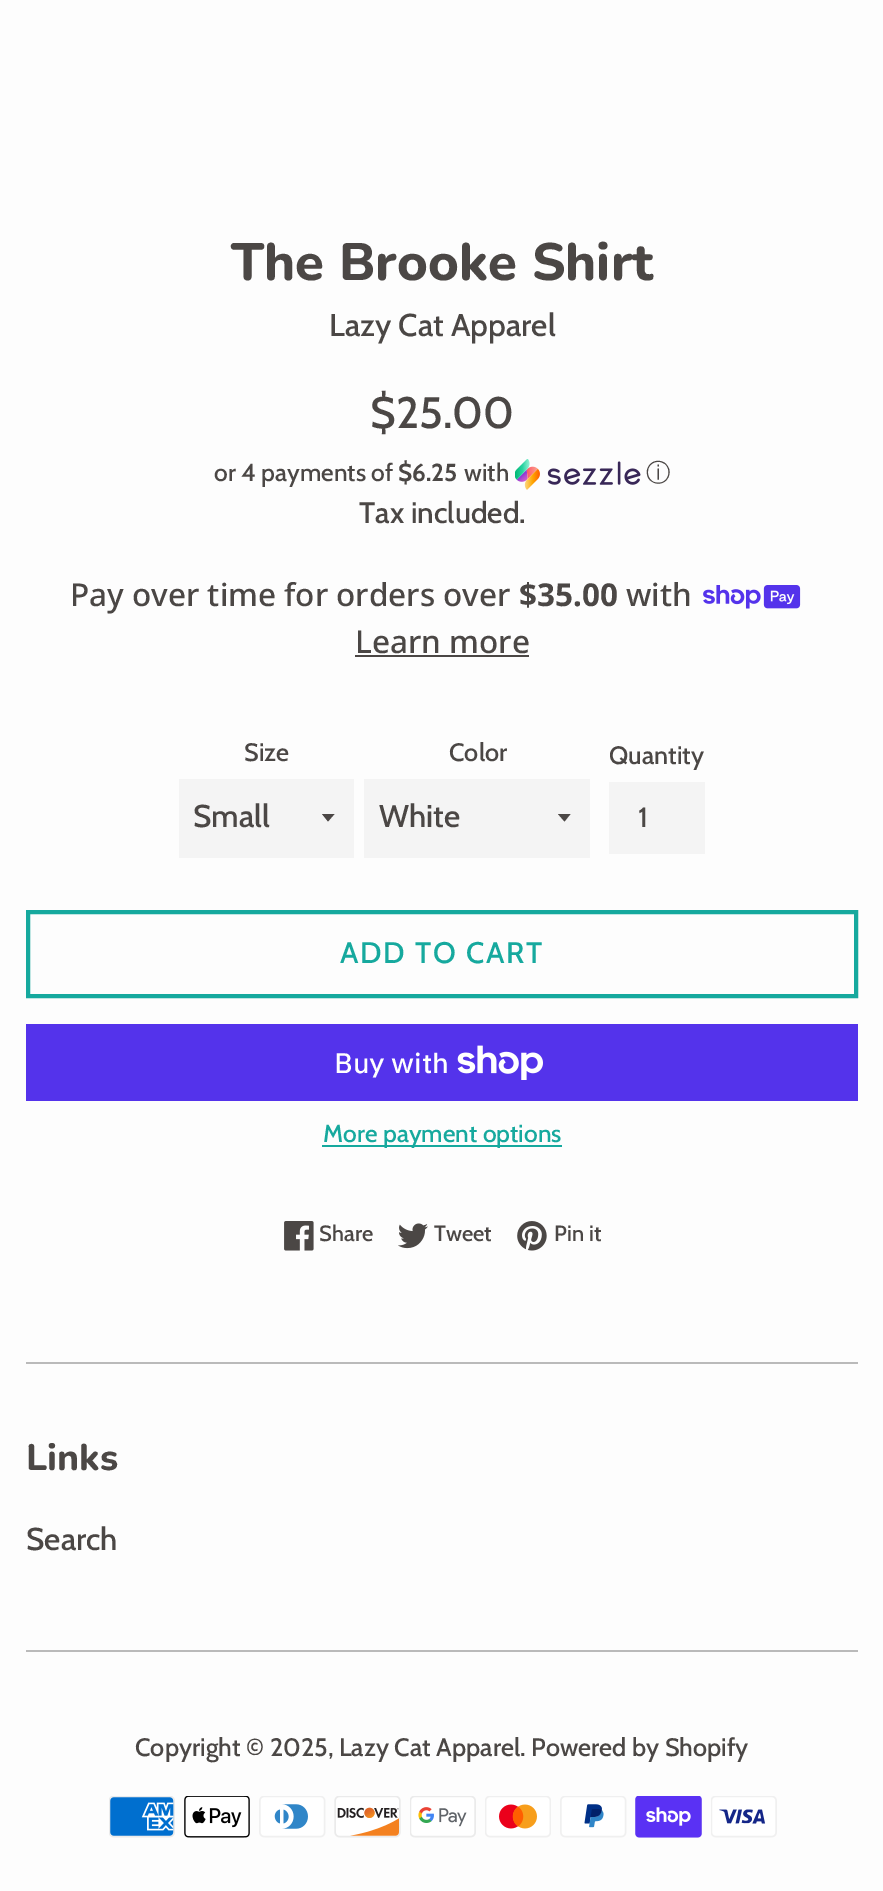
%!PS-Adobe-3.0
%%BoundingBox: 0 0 883 1891
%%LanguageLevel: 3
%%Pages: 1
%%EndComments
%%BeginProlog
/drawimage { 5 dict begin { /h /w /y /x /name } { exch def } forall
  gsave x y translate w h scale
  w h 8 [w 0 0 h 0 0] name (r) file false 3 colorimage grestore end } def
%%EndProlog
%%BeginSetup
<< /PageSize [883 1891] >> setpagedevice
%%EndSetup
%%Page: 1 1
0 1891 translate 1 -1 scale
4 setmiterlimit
0.992 setgray
0 0 883 1891 rectfill
(images/1.raw) 515 459 126 31 drawimage
(images/2.raw) 703 585 98 24 drawimage
0.294 0.278 0.271 setrgbcolor
355 655 174 2 rectfill
0.957 setgray
179 779 175 79 rectfill
0.294 0.278 0.271 setrgbcolor
newpath 322 814 moveto 328 821.5 lineto 334.5 814 lineto closepath fill
0.957 setgray
364 779 226 79 rectfill
0.294 0.278 0.271 setrgbcolor
newpath 558 814 moveto 564.5 821.5 lineto 570.5 814 lineto closepath fill
0.957 setgray
609 782 96 72 rectfill
0.086 0.663 0.62 setrgbcolor
4 setlinewidth
28 912 828 84 rectstroke
0.329 0.2 0.922 setrgbcolor
26 1024 832 77 rectfill
(images/3.raw) 457 1045 86 35 drawimage
0.086 0.663 0.62 setrgbcolor
322 1145 240 2 rectfill
(images/4.raw) 284 1221 30 30 drawimage
(images/5.raw) 398 1223 30 26 drawimage
(images/6.raw) 517 1221 30 30 drawimage
0.729 setgray
26 1362 832 2 rectfill
26 1650 832 2 rectfill
(images/7.raw) 109 1796 66 42 drawimage
(images/8.raw) 184 1796 66 42 drawimage
(images/9.raw) 259 1796 67 42 drawimage
(images/10.raw) 334 1796 67 42 drawimage
(images/11.raw) 410 1796 66 42 drawimage
(images/12.raw) 485 1796 66 42 drawimage
(images/13.raw) 560 1796 67 42 drawimage
(images/14.raw) 635 1796 67 42 drawimage
(images/15.raw) 711 1796 66 42 drawimage
/Nunito-ExtraBold [52.5 0 0 -52.5 0 0] selectfont
0.294 0.278 0.271 setrgbcolor
231 280 moveto (The Brooke Shirt) show
/Cabin-Medium [31.5 0 0 -31.5 0 0] selectfont
329 336 moveto (Lazy Cat Apparel) show
/Cabin-Medium [44 0 0 -44 0 0] selectfont
370 428 moveto ($25.00) show
/Cabin-Medium [24.5 0 0 -24.5 0 0] selectfont
214 481 moveto (or 4 payments of) show
/Cabin-Bold [24.5 0 0 -24.5 0 0] selectfont
398 481 moveto ($6.25) show
/Cabin-Medium [24.5 0 0 -24.5 0 0] selectfont
464 481 moveto (with) show
/WenQuanYiZenHei-Medium [24.5 0 0 -24.5 0 0] selectfont
646 481 moveto (ⓘ) show
/Cabin-Medium [29.75 0 0 -29.75 0 0] selectfont
359 523 moveto (Tax included.) show
/NotoSans-Medium [31.5 0 0 -31.5 0 0] selectfont
70 606 moveto (Pay over time for orders over) show
/NotoSans-Bold [31.5 0 0 -31.5 0 0] selectfont
519 606 moveto ($35.00) show
/NotoSans-Medium [31.5 0 0 -31.5 0 0] selectfont
626 606 moveto (with) show
355 653 moveto (Learn more) show
/Cabin-Medium [25.2 0 0 -25.2 0 0] selectfont
244 761 moveto (Size) show
/Cabin-Medium [31.5 0 0 -31.5 0 0] selectfont
193 827 moveto (Small) show
/Cabin-Medium [25.2 0 0 -25.2 0 0] selectfont
449 761 moveto (Color) show
/Cabin-Medium [31.5 0 0 -31.5 0 0] selectfont
379 827 moveto (White) show
/Cabin-Medium [25.2 0 0 -25.2 0 0] selectfont
609 764 moveto (Quantity) show
/Cabin-Medium [28 0 0 -28 0 0] selectfont
638 827 moveto (1) show
/Cabin-Medium [29.75 0 0 -29.75 0 0] selectfont
0.086 0.663 0.62 setrgbcolor
340 963 moveto 1.75 0 (ADD TO CART) ashow
/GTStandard-Medium [28 0 0 -28 0 0] selectfont
1 setgray
334 1073 moveto (Buy with) show
/Cabin-Medium [24.5 0 0 -24.5 0 0] selectfont
0.086 0.663 0.62 setrgbcolor
323 1142 moveto (More payment options) show
/Cabin-Medium [22 0 0 -22 0 0] selectfont
0.294 0.278 0.271 setrgbcolor
319 1241 moveto (Share) show
434 1241 moveto (Tweet) show
554 1241 moveto (Pin it) show
/Nunito-ExtraBold [37 0 0 -37 0 0] selectfont
26 1470 moveto (Links) show
/Cabin-Medium [31.5 0 0 -31.5 0 0] selectfont
26 1550 moveto (Search) show
/Cabin-Medium [25.2 0 0 -25.2 0 0] selectfont
135 1756 moveto (Copyright © 2025, Lazy Cat Apparel. Powered by Shopify) show
showpage
%%EOF
